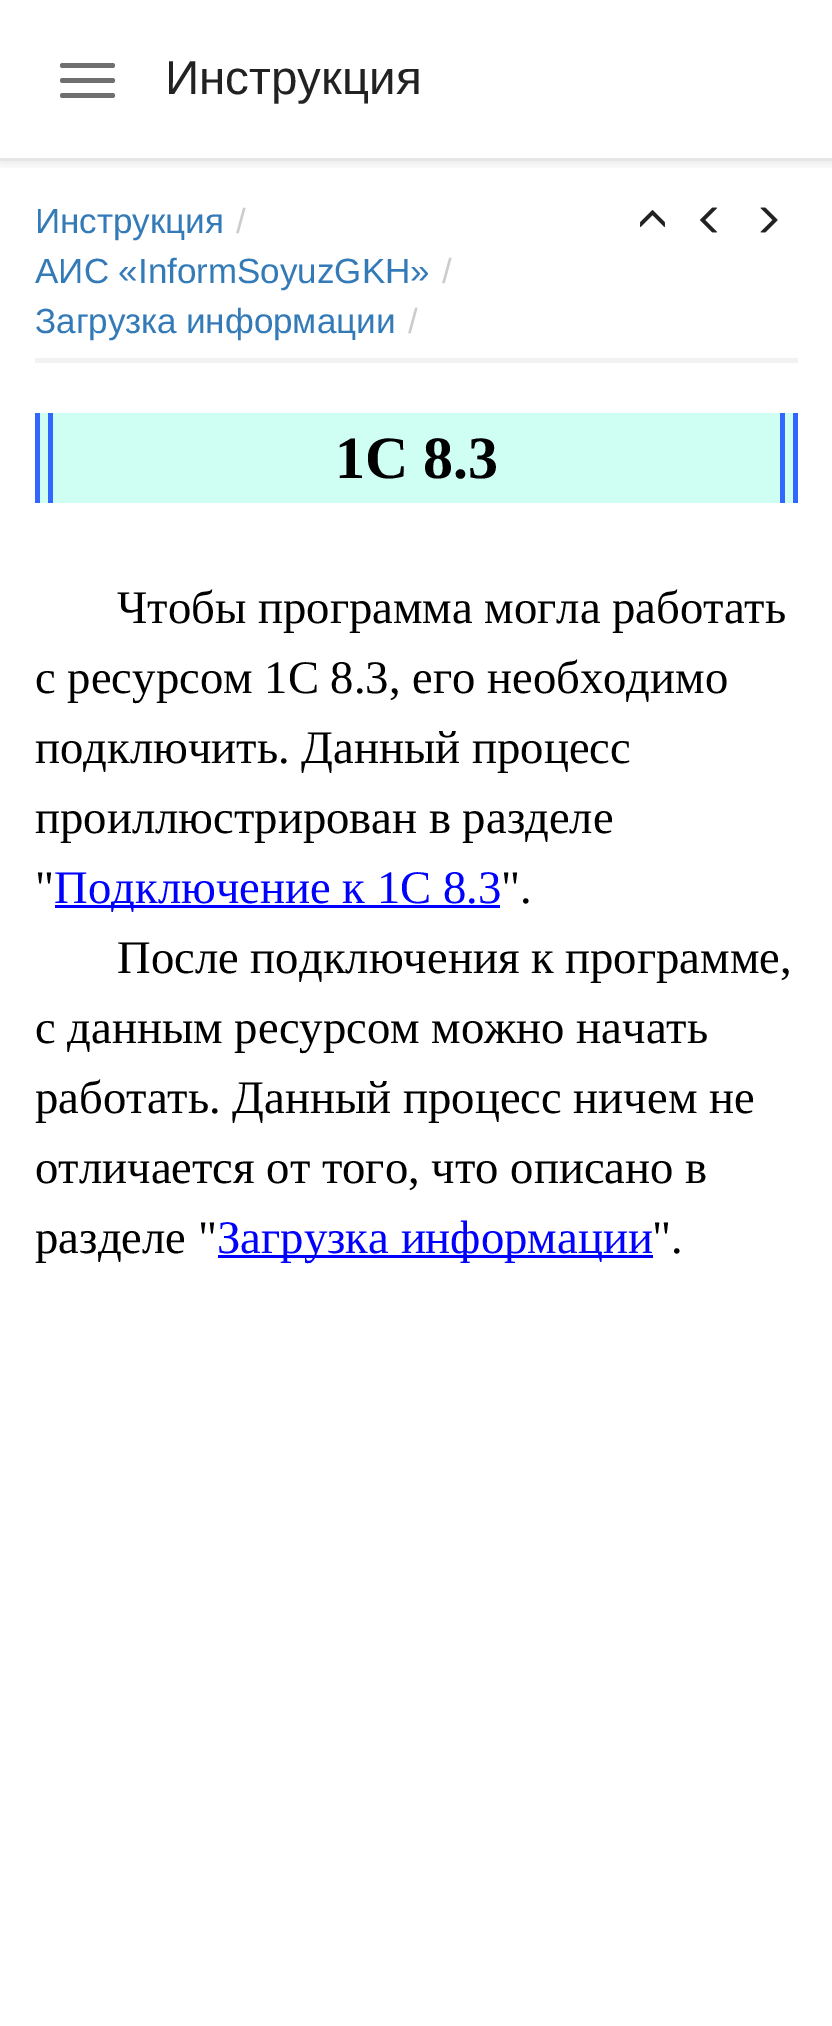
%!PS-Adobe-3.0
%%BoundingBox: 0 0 832 2026
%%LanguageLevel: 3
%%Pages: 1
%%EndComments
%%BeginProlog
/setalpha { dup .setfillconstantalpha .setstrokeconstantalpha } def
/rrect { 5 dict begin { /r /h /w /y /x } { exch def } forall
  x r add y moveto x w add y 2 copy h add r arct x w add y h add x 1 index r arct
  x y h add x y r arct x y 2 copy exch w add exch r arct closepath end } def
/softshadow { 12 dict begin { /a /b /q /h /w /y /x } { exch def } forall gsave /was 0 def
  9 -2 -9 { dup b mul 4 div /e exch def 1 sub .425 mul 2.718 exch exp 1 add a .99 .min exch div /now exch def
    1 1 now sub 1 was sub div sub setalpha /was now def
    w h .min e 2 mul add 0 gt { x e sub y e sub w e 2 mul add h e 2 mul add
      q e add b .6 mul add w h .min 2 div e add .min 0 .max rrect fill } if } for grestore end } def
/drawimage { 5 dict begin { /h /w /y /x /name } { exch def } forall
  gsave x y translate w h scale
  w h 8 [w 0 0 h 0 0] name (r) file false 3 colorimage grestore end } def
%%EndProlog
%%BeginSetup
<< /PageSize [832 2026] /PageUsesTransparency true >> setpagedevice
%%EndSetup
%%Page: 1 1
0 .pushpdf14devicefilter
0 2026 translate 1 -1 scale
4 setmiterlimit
1 setgray
0 0 832 2026 rectfill
gsave
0 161 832 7 rectclip
0 setgray
0 3 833 160 0 6 0.1 softshadow
grestore
0.902 setgray
0 158 832 3 rectfill
0.435 setgray
60 63 55 5 2.5 rrect fill
60 78 55 5 2.5 rrect fill
60 93 55 5 2.5 rrect fill
0.949 setgray
35 358 763 5 rectfill
(images/1.raw) 640 210 25 18 drawimage
(images/2.raw) 700 207 17 26 drawimage
(images/3.raw) 760 207 18 26 drawimage
0.812 0.996 0.953 setrgbcolor
40 413 753 90 rectfill
0.2 0.4 1 setrgbcolor
780 413 5 90 rectfill
793 413 5 90 rectfill
35 413 5 90 rectfill
48 413 5 90 rectfill
0 0 1 setrgbcolor
55 905 445 3 rectfill
218 1255 435 3 rectfill
/LiberationSans-Regular [47.5 0 0 -47.5 0 0] selectfont
0.133 setgray
165 94 moveto (Инструкция) show
/LiberationSans-Regular [35 0 0 -35 0 0] selectfont
0.2 0.478 0.718 setrgbcolor
35 233 moveto (Инструкция) show
0.8 setgray
236 233 moveto (/) show
0.2 0.478 0.718 setrgbcolor
35 283 moveto (АИС «InformSoyuzGKH») show
0.8 setgray
442 283 moveto (/) show
0.2 0.478 0.718 setrgbcolor
35 333 moveto (Загрузка информации) show
0.8 setgray
408 333 moveto (/) show
/LiberationSerif-Bold [60 0 0 -60 0 0] selectfont
0 setgray
335 478 moveto (1С 8.3) show
/LiberationSerif-Regular [46.7 0 0 -46.7 0 0] selectfont
117 623 moveto (Чтобы программа могла работать) show
35 693 moveto (с ресурсом 1С 8.3, его необходимо) show
35 763 moveto (подключить. Данный процесс) show
35 833 moveto (проиллюстрирован в разделе) show
35 903 moveto (") show
0 0 1 setrgbcolor
54 903 moveto (Подключение к 1С 8.3) show
0 setgray
501 903 moveto (".) show
117 973 moveto (После подключения к программе,) show
35 1043 moveto (с данным ресурсом можно начать) show
35 1113 moveto (работать. Данный процесс ничем не) show
35 1183 moveto (отличается от того, что описано в) show
35 1253 moveto (разделе ") show
0 0 1 setrgbcolor
217 1253 moveto (Загрузка информации) show
0 setgray
652 1253 moveto (".) show
.poppdf14devicefilter showpage
%%EOF
